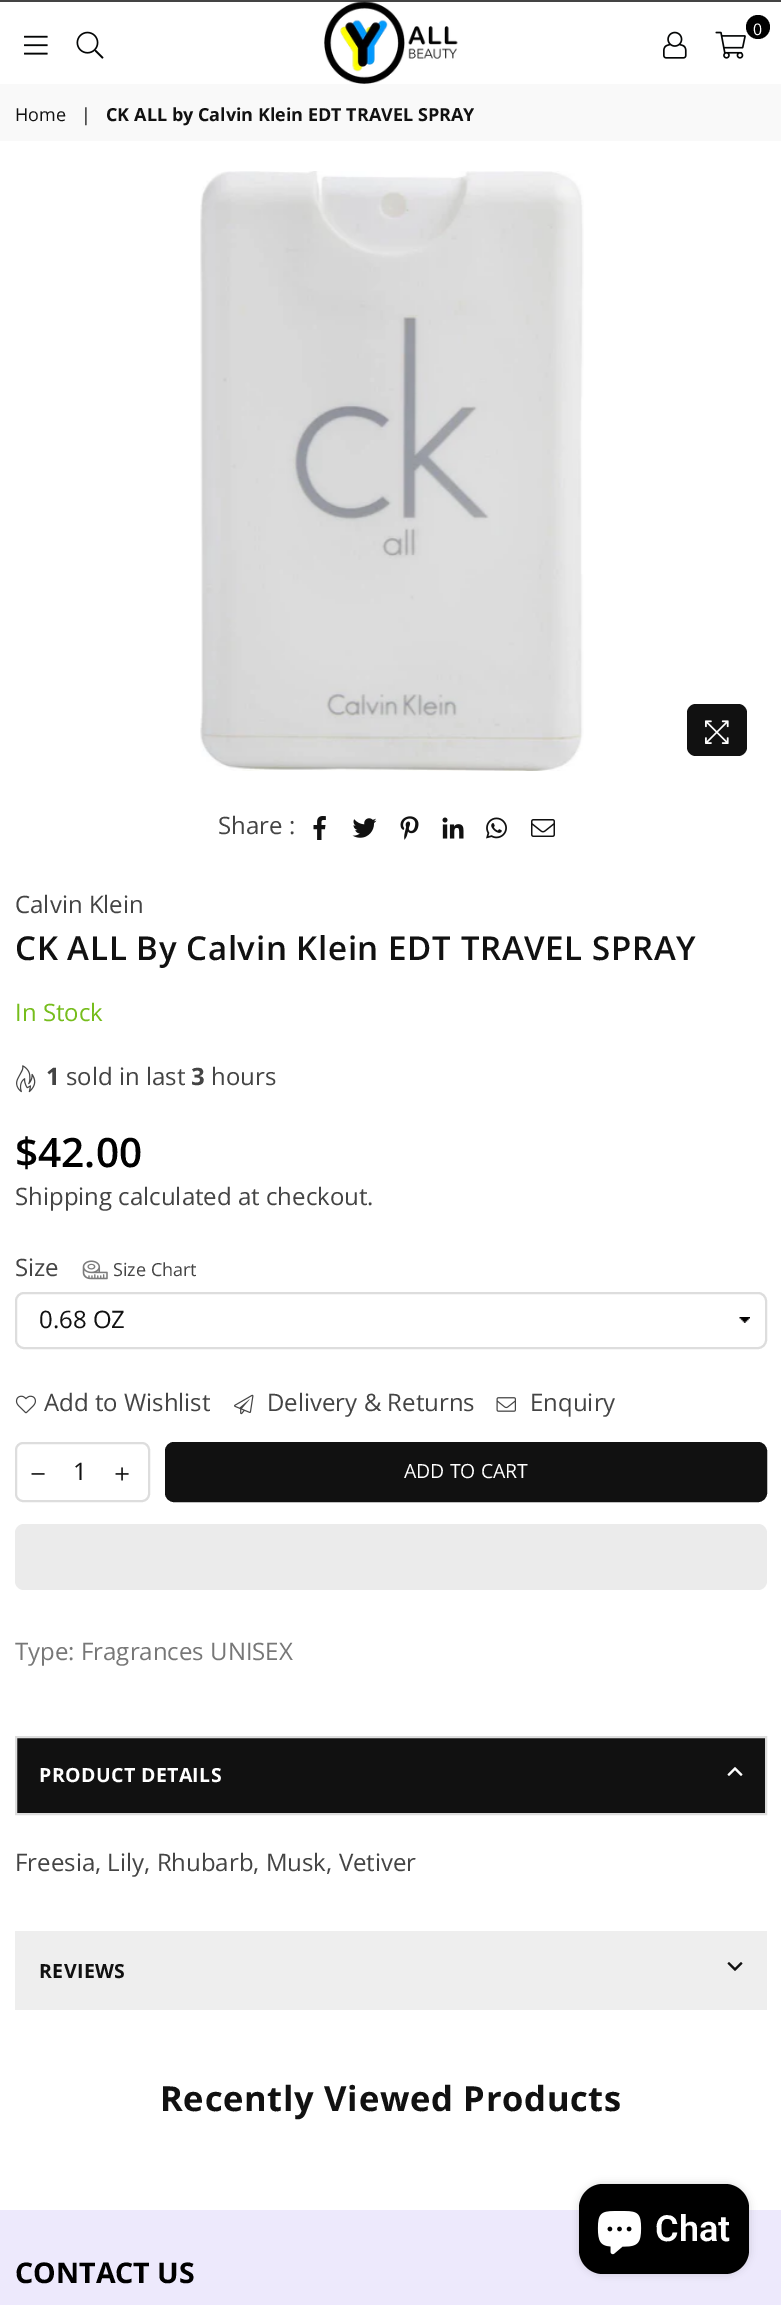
%!PS-Adobe-3.0
%%BoundingBox: 0 0 781 2305
%%LanguageLevel: 3
%%Pages: 1
%%EndComments
%%BeginProlog
/setalpha { dup .setfillconstantalpha .setstrokeconstantalpha } def
/rrect { 5 dict begin { /r /h /w /y /x } { exch def } forall
  x r add y moveto x w add y 2 copy h add r arct x w add y h add x 1 index r arct
  x y h add x y r arct x y 2 copy exch w add exch r arct closepath end } def
/softshadow { 12 dict begin { /a /b /q /h /w /y /x } { exch def } forall gsave /was 0 def
  9 -2 -9 { dup b mul 4 div /e exch def 1 sub .425 mul 2.718 exch exp 1 add a .99 .min exch div /now exch def
    1 1 now sub 1 was sub div sub setalpha /was now def
    w h .min e 2 mul add 0 gt { x e sub y e sub w e 2 mul add h e 2 mul add
      q e add b .6 mul add w h .min 2 div e add .min 0 .max rrect fill } if } for grestore end } def
/drawimage { 5 dict begin { /h /w /y /x /name } { exch def } forall
  gsave x y translate w h scale
  w h 8 [w 0 0 h 0 0] name (r) file false 3 colorimage grestore end } def
%%EndProlog
%%BeginSetup
<< /PageSize [781 2305] /PageUsesTransparency true >> setpagedevice
%%EndSetup
%%Page: 1 1
0 .pushpdf14devicefilter
0 2305 translate 1 -1 scale
4 setmiterlimit
1 setgray
0 0 781 2305 rectfill
0.267 setgray
0 0 781 2 rectfill
(images/1.raw) 324 1 134 83 drawimage
0 setgray
newpath 758 27 12 0 360 arc closepath fill
(images/2.raw) 715 31 31 28 drawimage
(images/3.raw) 663 31 24 28 drawimage
(images/4.raw) 24 35 24 20 drawimage
(images/5.raw) 76 31 28 28 drawimage
0.976 setgray
0 84 781 57 rectfill
(images/6.raw) 200 171 384 600 drawimage
0.067 setgray
687 704 60 52 9 rrect fill
(images/7.raw) 705 720 24 24 drawimage
(images/8.raw) 313 816 13 24 drawimage
(images/9.raw) 352 818 25 20 drawimage
(images/10.raw) 400 816 19 24 drawimage
(images/11.raw) 442 817 22 22 drawimage
(images/12.raw) 486 817 21 22 drawimage
(images/13.raw) 531 819 24 18 drawimage
(images/14.raw) 16 1065 20 28 drawimage
(images/15.raw) 82 1260 26 20 drawimage
(images/16.raw) 739 1317 11 6 drawimage
0.867 setgray
2 setlinewidth
16 1293 750 55 8 rrect stroke
(images/17.raw) 15 1395 21 19 drawimage
(images/18.raw) 234 1394 20 21 drawimage
(images/19.raw) 496 1397 20 15 drawimage
16 1443 133 58 7 rrect stroke
(images/20.raw) 31 1473 14 2 drawimage
(images/21.raw) 115 1467 14 14 drawimage
0.067 setgray
166 1443 600 58 8 rrect gsave fill grestore
stroke
0.922 setgray
15 1524 752 66 9 rrect fill
0.067 setgray
newpath 16 1737 moveto 766 1737 lineto 766 1814 lineto 16 1814 lineto closepath gsave fill grestore
0.867 setgray
stroke
(images/22.raw) 727 1767 16 9 drawimage
0.933 setgray
15 1931 752 79 rectfill
(images/23.raw) 727 1962 16 9 drawimage
0.929 0.914 0.988 setrgbcolor
0 2210 781 95 rectfill
0 setgray
579 2184 170 90 24 4 0.15 softshadow
579 2184 170 90 24 rrect fill
(images/24.raw) 597 2211 45 44 drawimage
/OpenSans-Regular [16 0 0 -16 0 0] selectfont
1 setgray
753 35 moveto (0) show
/OpenSans-Regular [18 0 0 -18 0 0] selectfont
0.067 setgray
15 121 moveto (Home) show
81 121 moveto (|) show
/OpenSans-Bold [18 0 0 -18 0 0] selectfont
106 121 moveto (CK ALL by Calvin Klein EDT TRAVEL SPRAY) show
/OpenSans-Regular [24 0 0 -24 0 0] selectfont
0.267 setgray
218 834 moveto (Share :) show
15 913 moveto (Calvin Klein) show
/OpenSans-SemiBold [33 0 0 -33 0 0] selectfont
0.067 setgray
15 960 moveto 0.65 0 (CK ALL By Calvin Klein EDT TRAVEL SPRAY) ashow
/OpenSans-Regular [24 0 0 -24 0 0] selectfont
0.463 0.741 0.11 setrgbcolor
15 1021 moveto (In Stock) show
/OpenSans-Bold [24 0 0 -24 0 0] selectfont
0.267 setgray
46 1085 moveto (1) show
/OpenSans-Regular [24 0 0 -24 0 0] selectfont
66 1085 moveto (sold in last) show
/OpenSans-Bold [24 0 0 -24 0 0] selectfont
191 1085 moveto (3) show
/OpenSans-Regular [24 0 0 -24 0 0] selectfont
211 1085 moveto (hours) show
/OpenSans-SemiBold [40.5 0 0 -40.5 0 0] selectfont
0 setgray
15 1167 moveto ($42.00) show
/OpenSans-Regular [24 0 0 -24 0 0] selectfont
0.267 setgray
15 1205 moveto (Shipping calculated at checkout.) show
15 1276 moveto (Size) show
/OpenSans-Regular [18 0 0 -18 0 0] selectfont
113 1276 moveto (Size Chart) show
/OpenSans-Regular [24 0 0 -24 0 0] selectfont
0.067 setgray
39 1328 moveto (0.68 OZ) show
0.267 setgray
44 1411 moveto (Add to Wishlist) show
267 1411 moveto (Delivery & Returns) show
530 1411 moveto (Enquiry) show
0.067 setgray
73 1480 moveto (1) show
/OpenSans-Regular [19.5 0 0 -19.5 0 0] selectfont
1 setgray
404 1478 moveto (ADD TO CART) show
/OpenSans-Regular [24 0 0 -24 0 0] selectfont
0.467 setgray
15 1660 moveto (Type: Fragrances UNISEX) show
/OpenSans-Bold [19.5 0 0 -19.5 0 0] selectfont
1 setgray
39 1782 moveto 0.4 0 (PRODUCT DETAILS) ashow
/OpenSans-Regular [24 0 0 -24 0 0] selectfont
0.267 setgray
15 1871 moveto (Freesia, Lily, Rhubarb, Musk, Vetiver) show
/OpenSans-Bold [19.5 0 0 -19.5 0 0] selectfont
0.067 setgray
39 1978 moveto 0.4 0 (REVIEWS) ashow
/OpenSans-Bold [34.5 0 0 -34.5 0 0] selectfont
160 2111 moveto 0.7 0 (Recently Viewed Products) ashow
/Roboto-SemiBold [36 0 0 -36 0 0] selectfont
1 setgray
655 2241 moveto (Chat) show
/OpenSans-Bold [28.5 0 0 -28.5 0 0] selectfont
0 setgray
15 2283 moveto (CONTACT US) show
.poppdf14devicefilter showpage
%%EOF
